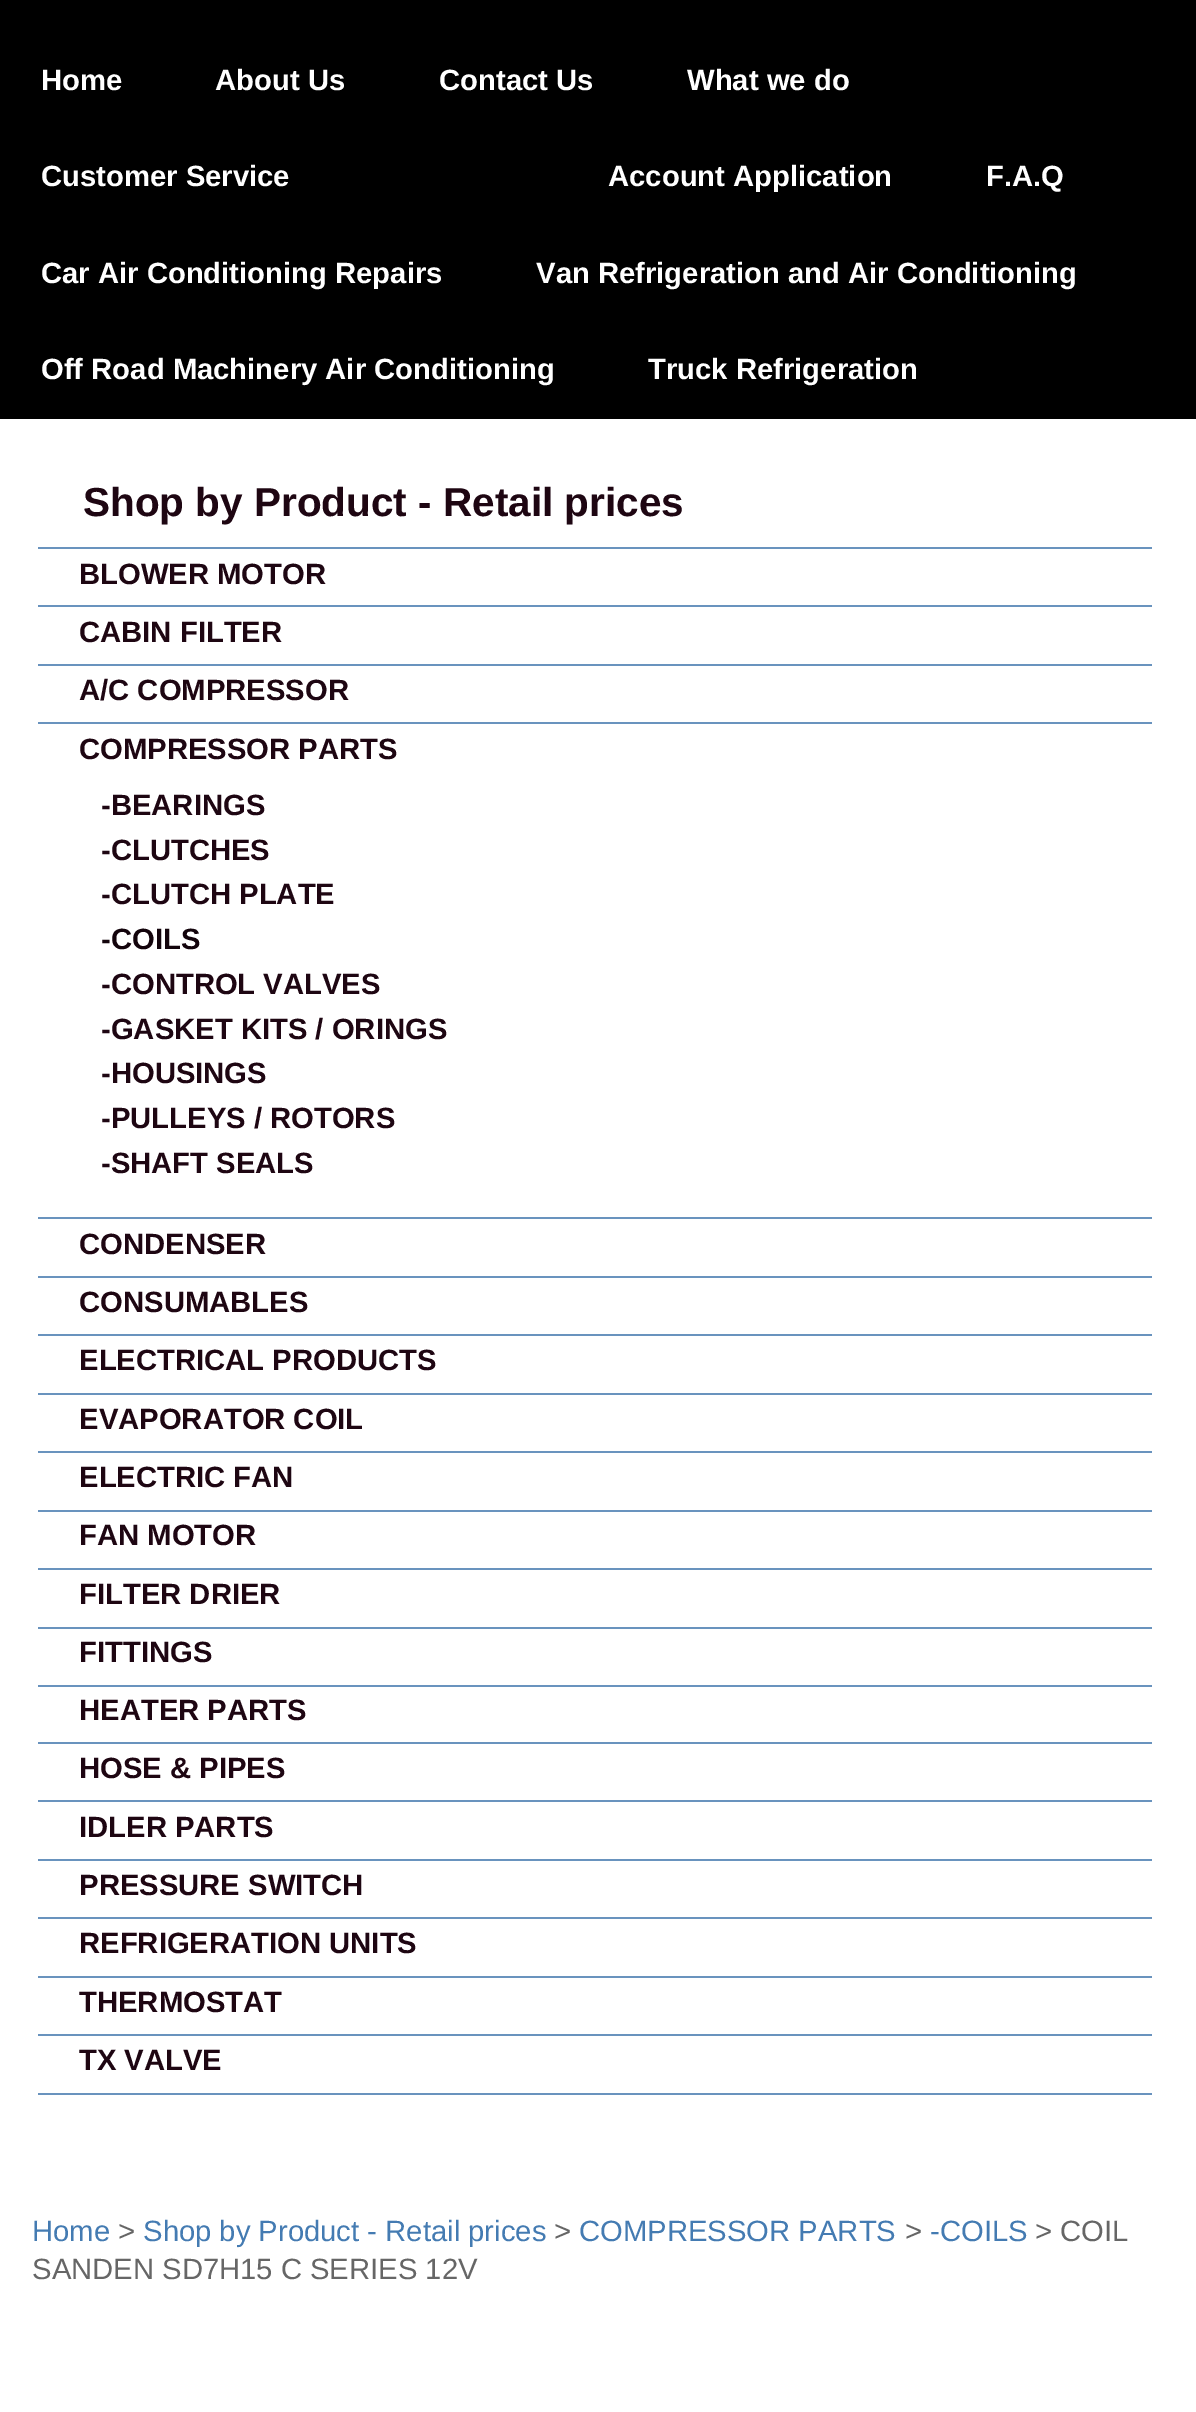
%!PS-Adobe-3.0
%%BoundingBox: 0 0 1196 2412
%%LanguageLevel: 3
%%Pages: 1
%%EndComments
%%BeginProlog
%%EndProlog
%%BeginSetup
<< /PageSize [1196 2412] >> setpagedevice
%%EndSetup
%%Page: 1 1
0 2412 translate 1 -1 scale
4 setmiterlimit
0 setgray
0 0 1196 2412 rectfill
1 setgray
0 419 1196 1993 rectfill
0.412 0.576 0.745 setrgbcolor
38 547 1114 2 rectfill
38 605 1114 2 rectfill
38 664 1114 2 rectfill
38 722 1114 2 rectfill
38 1217 1114 2 rectfill
38 1276 1114 2 rectfill
38 1334 1114 2 rectfill
38 1393 1114 2 rectfill
38 1451 1114 2 rectfill
38 1510 1114 2 rectfill
38 1568 1114 2 rectfill
38 1627 1114 2 rectfill
38 1685 1114 2 rectfill
38 1742 1114 2 rectfill
38 1800 1114 2 rectfill
38 1859 1114 2 rectfill
38 1917 1114 2 rectfill
38 1976 1114 2 rectfill
38 2034 1114 2 rectfill
38 2093 1114 2 rectfill
/LiberationSans-Bold [29.25 0 0 -29.25 0 0] selectfont
1 setgray
41 90 moveto (Home) show
215 90 moveto (About Us) show
439 90 moveto (Contact Us) show
687 90 moveto (What we do) show
41 186 moveto (Customer Service) show
608 186 moveto (Account Application) show
986 186 moveto (F.A.Q) show
41 283 moveto (Car Air Conditioning Repairs) show
536 283 moveto (Van Refrigeration and Air Conditioning) show
41 379 moveto (Off Road Machinery Air Conditioning) show
648 379 moveto (Truck Refrigeration) show
/LiberationSans-Bold [40.5 0 0 -40.5 0 0] selectfont
0.118 0.024 0.071 setrgbcolor
83 516 moveto (Shop by Product - Retail prices) show
/LiberationSans-Bold [29.25 0 0 -29.25 0 0] selectfont
79 584 moveto (BLOWER MOTOR) show
79 642 moveto (CABIN FILTER) show
79 700 moveto (A/C COMPRESSOR) show
79 759 moveto (COMPRESSOR PARTS) show
101 815 moveto (-BEARINGS) show
101 860 moveto (-CLUTCHES) show
101 904 moveto (-CLUTCH PLATE) show
0.075 0.016 0.047 setrgbcolor
101 949 moveto (-COILS) show
0.118 0.024 0.071 setrgbcolor
101 994 moveto (-CONTROL VALVES) show
101 1039 moveto (-GASKET KITS / ORINGS) show
101 1083 moveto (-HOUSINGS) show
101 1128 moveto (-PULLEYS / ROTORS) show
101 1173 moveto (-SHAFT SEALS) show
79 1254 moveto (CONDENSER) show
79 1312 moveto (CONSUMABLES) show
79 1370 moveto (ELECTRICAL PRODUCTS) show
79 1429 moveto (EVAPORATOR COIL) show
79 1487 moveto (ELECTRIC FAN) show
79 1545 moveto (FAN MOTOR) show
79 1604 moveto (FILTER DRIER) show
79 1662 moveto (FITTINGS) show
79 1720 moveto (HEATER PARTS) show
79 1778 moveto (HOSE & PIPES) show
79 1837 moveto (IDLER PARTS) show
79 1895 moveto (PRESSURE SWITCH) show
79 1953 moveto (REFRIGERATION UNITS) show
79 2012 moveto (THERMOSTAT) show
79 2070 moveto (TX VALVE) show
/LiberationSans-Regular [29.25 0 0 -29.25 0 0] selectfont
0.267 0.482 0.698 setrgbcolor
32 2241 moveto (Home) show
0.4 setgray
118 2241 moveto (>) show
0.267 0.482 0.698 setrgbcolor
143 2241 moveto (Shop by Product - Retail prices) show
0.4 setgray
554 2241 moveto (>) show
0.267 0.482 0.698 setrgbcolor
579 2241 moveto (COMPRESSOR PARTS) show
0.4 setgray
905 2241 moveto (>) show
0.267 0.482 0.698 setrgbcolor
930 2241 moveto (-COILS) show
0.4 setgray
1035 2241 moveto (> COIL) show
32 2279 moveto (SANDEN SD7H15 C SERIES 12V) show
showpage
%%EOF
